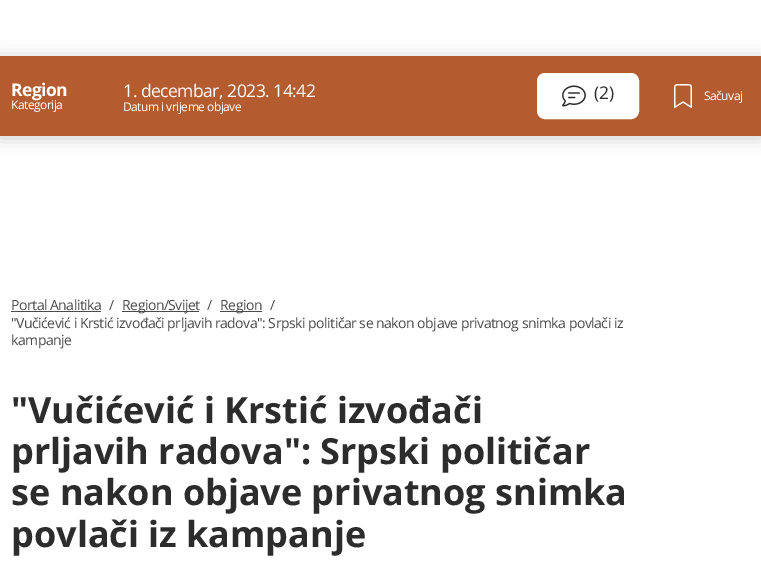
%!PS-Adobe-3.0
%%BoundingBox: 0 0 761 577
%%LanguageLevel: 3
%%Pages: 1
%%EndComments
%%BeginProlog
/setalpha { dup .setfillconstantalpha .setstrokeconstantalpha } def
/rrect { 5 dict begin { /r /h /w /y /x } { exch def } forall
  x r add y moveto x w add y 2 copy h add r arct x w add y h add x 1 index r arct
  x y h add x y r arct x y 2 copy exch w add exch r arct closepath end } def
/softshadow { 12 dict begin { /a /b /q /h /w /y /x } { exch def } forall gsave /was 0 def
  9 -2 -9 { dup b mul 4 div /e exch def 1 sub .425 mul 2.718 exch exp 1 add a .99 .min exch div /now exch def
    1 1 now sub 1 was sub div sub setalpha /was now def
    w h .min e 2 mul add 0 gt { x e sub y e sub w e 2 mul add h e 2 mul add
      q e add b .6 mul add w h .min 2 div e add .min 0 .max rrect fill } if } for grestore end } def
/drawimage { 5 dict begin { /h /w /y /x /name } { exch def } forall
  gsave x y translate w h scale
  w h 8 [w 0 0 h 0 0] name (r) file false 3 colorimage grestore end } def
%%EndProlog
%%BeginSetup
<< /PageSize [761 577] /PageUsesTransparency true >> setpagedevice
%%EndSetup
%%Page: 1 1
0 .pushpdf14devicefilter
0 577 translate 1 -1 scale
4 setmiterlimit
1 setgray
0 0 761 577 rectfill
0 setgray
0 58 761 80 0 8 0.2 softshadow
0.706 0.361 0.188 setrgbcolor
0 56 761 80 rectfill
1 setgray
537.5 73.5 101 45 7.5 rrect gsave fill grestore
stroke
(images/1.raw) 562 85 24 22 drawimage
(images/2.raw) 674 84 18 24 drawimage
0.29 setgray
11 311 90 1 rectfill
122 311 77 1 rectfill
220 311 42 1 rectfill
/OpenSans-Bold [17.5 0 0 -17.5 0 0] selectfont
1 setgray
11 96 moveto -0.5 0 (Region) ashow
/OpenSans-Regular [12 0 0 -12 0 0] selectfont
11 109 moveto -0.5 0 (Kategorija) ashow
/OpenSans-Regular [17.5 0 0 -17.5 0 0] selectfont
123 97 moveto -0.5 0 (1. decembar, 2023. 14:42) ashow
/OpenSans-Regular [12 0 0 -12 0 0] selectfont
123 111 moveto -0.5 0 (Datum i vrijeme objave) ashow
/OpenSans-Regular [17.5 0 0 -17.5 0 0] selectfont
0.173 setgray
594 99 moveto (\(2\)) show
/OpenSans-Regular [12 0 0 -12 0 0] selectfont
1 setgray
704 100 moveto -0.5 0 (Sačuvaj) ashow
/OpenSans-Regular [14 0 0 -14 0 0] selectfont
0.29 setgray
11 310 moveto -0.5 0 (Portal Analitika) ashow
109 310 moveto -0.5 0 (/) ashow
122 310 moveto -0.5 0 (Region/Svijet) ashow
207 310 moveto -0.5 0 (/) ashow
220 310 moveto -0.5 0 (Region) ashow
270 310 moveto -0.5 0 (/) ashow
11 328 moveto -0.5 0 ("Vučićević i Krstić izvođači prljavih radova": Srpski političar se nakon objave privatnog snimka povlači iz) ashow
11 345 moveto -0.5 0 (kampanje) ashow
/OpenSans-Bold [36 0 0 -36 0 0] selectfont
0.173 setgray
11 423 moveto ("Vučićević i Krstić izvođači) show
11 464 moveto (prljavih radova": Srpski političar) show
11 505 moveto (se nakon objave privatnog snimka) show
11 547 moveto (povlači iz kampanje) show
.poppdf14devicefilter showpage
%%EOF
